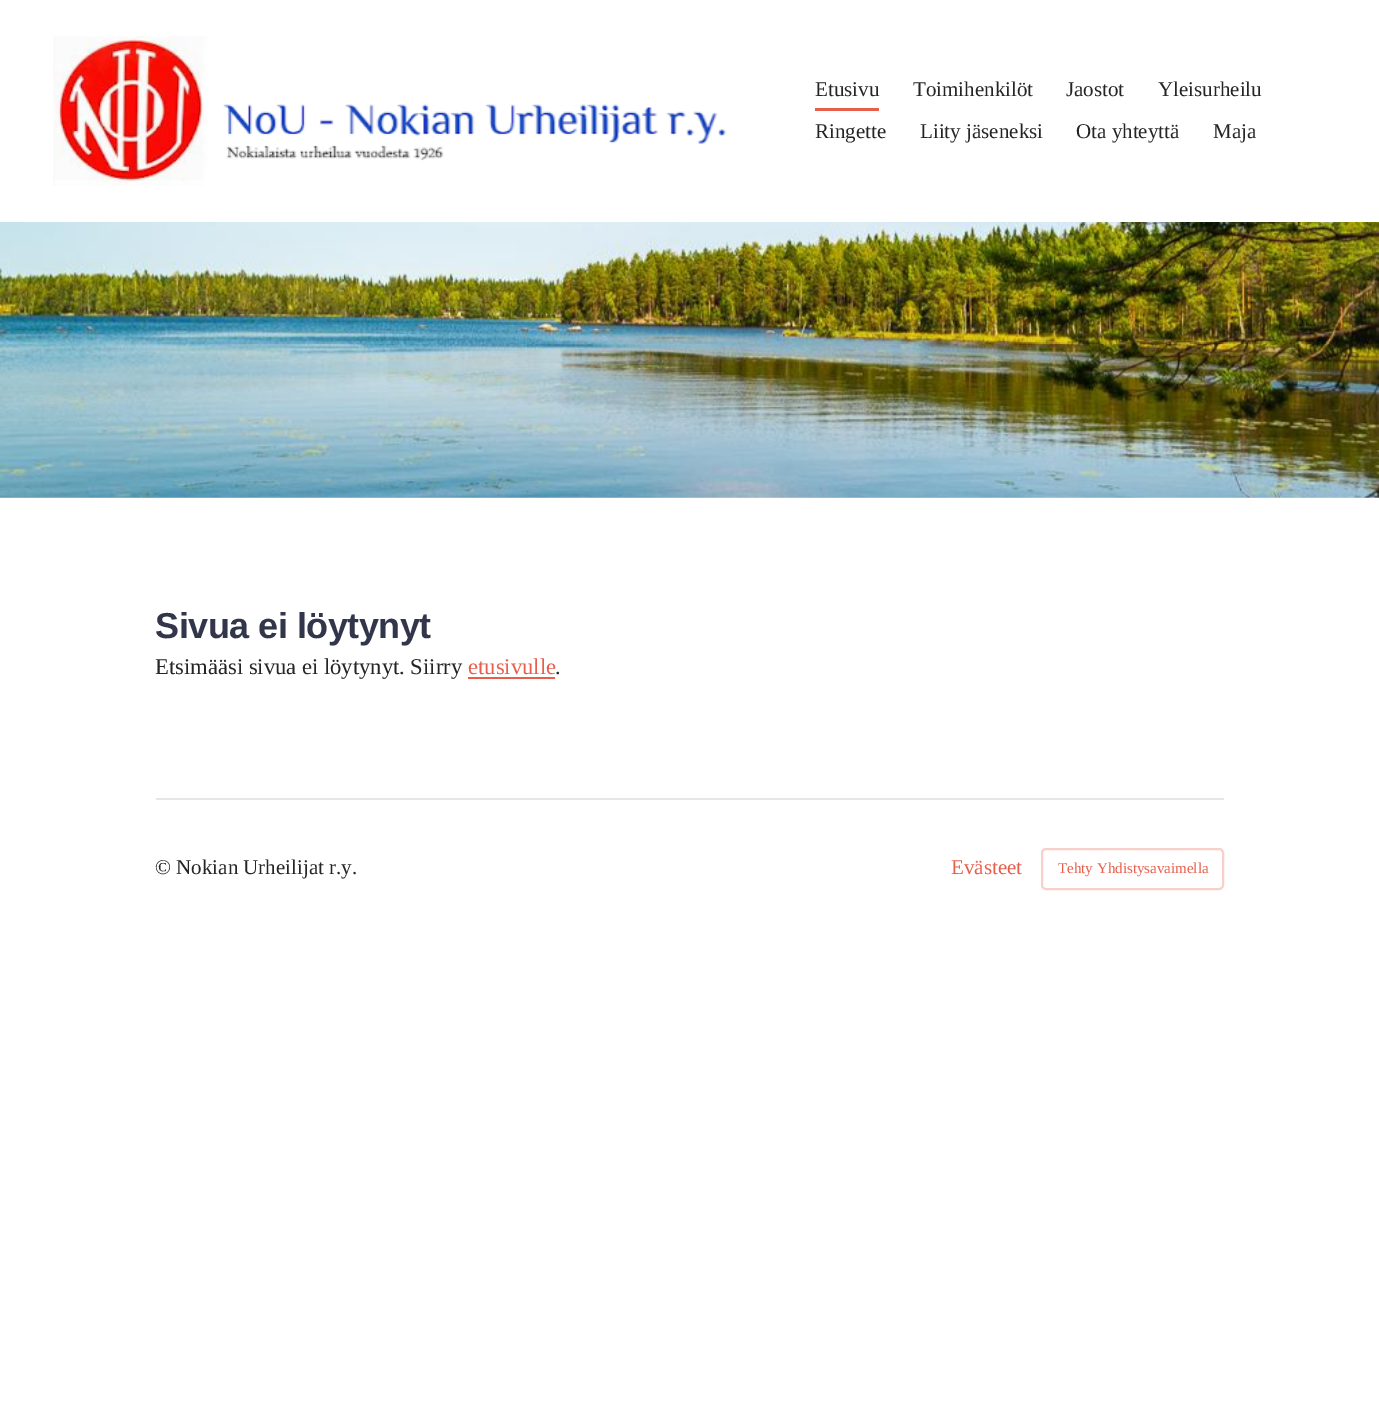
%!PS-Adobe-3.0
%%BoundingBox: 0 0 1379 1425
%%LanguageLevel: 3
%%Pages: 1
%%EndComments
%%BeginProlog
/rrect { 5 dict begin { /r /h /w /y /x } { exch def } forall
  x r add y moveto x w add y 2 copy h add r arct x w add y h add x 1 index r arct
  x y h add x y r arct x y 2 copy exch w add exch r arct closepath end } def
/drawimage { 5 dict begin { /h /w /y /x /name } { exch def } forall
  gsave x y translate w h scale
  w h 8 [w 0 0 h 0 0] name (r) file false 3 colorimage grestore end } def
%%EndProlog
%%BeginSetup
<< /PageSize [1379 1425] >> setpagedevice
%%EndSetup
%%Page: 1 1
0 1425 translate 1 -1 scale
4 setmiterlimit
1 setgray
0 0 1379 1425 rectfill
(images/1.raw) 0 222 1379 276 drawimage
(images/2.raw) 53 36 674 150 drawimage
0.906 0.369 0.294 setrgbcolor
815 108 64 3 rectfill
468 677 87 2 rectfill
0.902 setgray
156 798 1068 2 rectfill
0.973 0.812 0.788 setrgbcolor
2 setlinewidth
1042 849 181 40 4 rrect stroke
/LiberationSerif-Regular [21 0 0 -21 0 0] selectfont
0.145 0.145 0.149 setrgbcolor
815 96 moveto (Etusivu) show
913 96 moveto (Toimihenkilöt) show
1066 96 moveto (Jaostot) show
1158 96 moveto (Yleisurheilu) show
815 138 moveto (Ringette) show
920 138 moveto (Liity jäseneksi) show
1076 138 moveto (Ota yhteyttä) show
1213 138 moveto (Maja) show
/LiberationSans-Bold [36 0 0 -36 0 0] selectfont
0.192 0.212 0.29 setrgbcolor
155 638 moveto -0.5 0 (Sivua ei löytynyt) ashow
/LiberationSerif-Regular [22.6 0 0 -22.6 0 0] selectfont
0.145 0.145 0.149 setrgbcolor
155 674 moveto (Etsimääsi sivua ei löytynyt. Siirry) show
0.906 0.369 0.294 setrgbcolor
468 674 moveto (etusivulle) show
0.145 0.145 0.149 setrgbcolor
555 674 moveto (.) show
/LiberationSerif-Regular [21 0 0 -21 0 0] selectfont
155 874 moveto (© Nokian Urheilijat r.y.) show
0.906 0.369 0.294 setrgbcolor
951 874 moveto (Evästeet) show
/LiberationSerif-Regular [15 0 0 -15 0 0] selectfont
1058 873 moveto (Tehty Yhdistysavaimella) show
showpage
%%EOF
